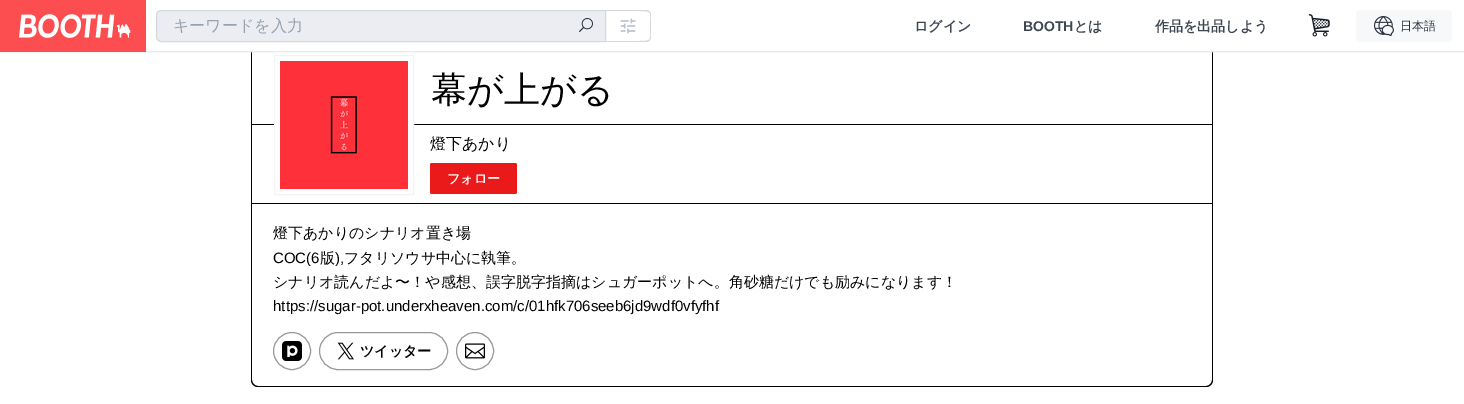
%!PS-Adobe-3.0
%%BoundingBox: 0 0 1464 404
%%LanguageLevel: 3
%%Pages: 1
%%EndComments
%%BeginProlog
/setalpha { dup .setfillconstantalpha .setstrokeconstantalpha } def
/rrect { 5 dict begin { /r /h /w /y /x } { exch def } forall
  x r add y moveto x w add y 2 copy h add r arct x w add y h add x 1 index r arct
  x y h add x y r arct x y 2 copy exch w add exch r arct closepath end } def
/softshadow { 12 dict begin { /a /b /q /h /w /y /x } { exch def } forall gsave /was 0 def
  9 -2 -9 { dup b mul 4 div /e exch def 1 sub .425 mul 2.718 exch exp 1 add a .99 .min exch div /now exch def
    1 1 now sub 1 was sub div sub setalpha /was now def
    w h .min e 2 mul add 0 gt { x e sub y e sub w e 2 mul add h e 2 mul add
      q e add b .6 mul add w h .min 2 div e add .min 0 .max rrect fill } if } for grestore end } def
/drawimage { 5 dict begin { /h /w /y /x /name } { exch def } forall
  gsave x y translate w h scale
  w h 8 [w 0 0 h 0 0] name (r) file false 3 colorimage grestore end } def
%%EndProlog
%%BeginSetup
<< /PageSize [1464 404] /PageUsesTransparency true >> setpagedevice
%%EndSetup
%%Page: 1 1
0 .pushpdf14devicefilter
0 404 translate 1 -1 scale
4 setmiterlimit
1 setgray
0 0 1464 404 rectfill
0 setgray
newpath 251 -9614 moveto 1213 -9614 lineto 1213 380 lineto 1213 384 1210 387 1206 387 curveto 258 387 lineto 254 387 251 384 251 380 curveto closepath 252 -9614 moveto 1212 -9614 lineto 1212 380 lineto 1212 383 1209 386 1206 386 curveto 258 386 lineto 255 386 252 383 252 380 curveto closepath eofill
251 124 962 1 rectfill
1 setgray
275 124 138 1 rectfill
0.953 setgray
274.5 55.5 139 139 rectstroke
0.902 0.91 0.922 setrgbcolor
0 0 1464 52 0 1 1 softshadow
1 setgray
146 0 1318 51 rectfill
0.902 0.91 0.922 setrgbcolor
146 51 1318 1 rectfill
(images/1.raw) 0 0 146 52 drawimage
0.922 0.929 0.949 setrgbcolor
newpath 161 10.5 moveto 605.5 10.5 lineto 605.5 41.5 lineto 161 41.5 lineto 158.5 41.5 156.5 39.5 156.5 37 curveto 156.5 15 lineto 156.5 12.5 158.5 10.5 161 10.5 curveto closepath gsave fill grestore
0.835 0.851 0.871 setrgbcolor
stroke
(images/2.raw) 579 18 14 14 drawimage
newpath 606 10 moveto 646 10 lineto 649 10 651 12 651 15 curveto 651 37 lineto 651 40 649 42 646 42 curveto 606 42 lineto closepath 606 11 moveto 639 11 lineto 653 11 650 12 650 26 curveto 650 40 653 41 639 41 curveto 606 41 lineto closepath eofill
(images/3.raw) 620 18 16 16 drawimage
(images/4.raw) 1308 14 22 23 drawimage
0.969 0.973 0.98 setrgbcolor
1356 10 96 32 4 rrect fill
(images/5.raw) 1374 16 20 20 drawimage
(images/6.raw) 280 61 128 128 drawimage
0.918 0.102 0.102 setrgbcolor
430 163 87 31 2 rrect fill
0 setgray
251 203 962 1 rectfill
0.6 setgray
newpath 292 351 18.5 0 360 arc closepath stroke
(images/7.raw) 282 341 20 20 drawimage
319.5 332.5 128 37 18.5 rrect stroke
(images/8.raw) 337 342 17 18 drawimage
newpath 475 351 18.5 0 360 arc closepath stroke
(images/9.raw) 465 343 20 16 drawimage
/WenQuanYiZenHei-Medium [16 0 0 -16 0 0] selectfont
0.588 0.635 0.69 setrgbcolor
173 31 moveto (キーワードを入力) show
/WenQuanYiZenHei-Bold [14 0 0 -14 0 0] selectfont
0.239 0.275 0.318 setrgbcolor
914 31 moveto (ログイン) show
/LiberationSans-Bold [14 0 0 -14 0 0] selectfont
1023 31 moveto (BOOTH) show
/WenQuanYiZenHei-Bold [14 0 0 -14 0 0] selectfont
1074 31 moveto (とは) show
1155 31 moveto (作品を出品しよう) show
/WenQuanYiZenHei-Medium [12 0 0 -12 0 0] selectfont
0.145 0.184 0.239 setrgbcolor
1400 30 moveto (日本語) show
/WenQuanYiZenHei-Medium [36 0 0 -36 0 0] selectfont
0 setgray
431 102 moveto (幕が上がる) show
/WenQuanYiZenHei-Medium [16 0 0 -16 0 0] selectfont
430 149 moveto (燈下あかり) show
/WenQuanYiZenHei-Bold [13 0 0 -13 0 0] selectfont
1 setgray
447 183 moveto (フォロー) show
/WenQuanYiZenHei-Medium [15 0 0 -15 0 0] selectfont
0 setgray
273 238 moveto (燈下あかりのシナリオ置き場) show
/LiberationSans-Regular [15 0 0 -15 0 0] selectfont
273 263 moveto (COC\(6) show
/WenQuanYiZenHei-Medium [15 0 0 -15 0 0] selectfont
320 263 moveto (版) show
/LiberationSans-Regular [15 0 0 -15 0 0] selectfont
335 263 moveto (\),) show
/WenQuanYiZenHei-Medium [15 0 0 -15 0 0] selectfont
344 263 moveto (フタリソウサ中心に執筆。) show
273 287 moveto (シナリオ読んだよ〜！や感想、誤字脱字指摘はシュガーポットへ。角砂糖だけでも励みになります！) show
/LiberationSans-Regular [15 0 0 -15 0 0] selectfont
273 311 moveto (https://sugar-pot.underxheaven.com/c/01hfk706seeb6jd9wdf0vfyfhf) show
/WenQuanYiZenHei-Bold [14 0 0 -14 0 0] selectfont
360 356 moveto (ツイッター) show
.poppdf14devicefilter showpage
%%EOF
